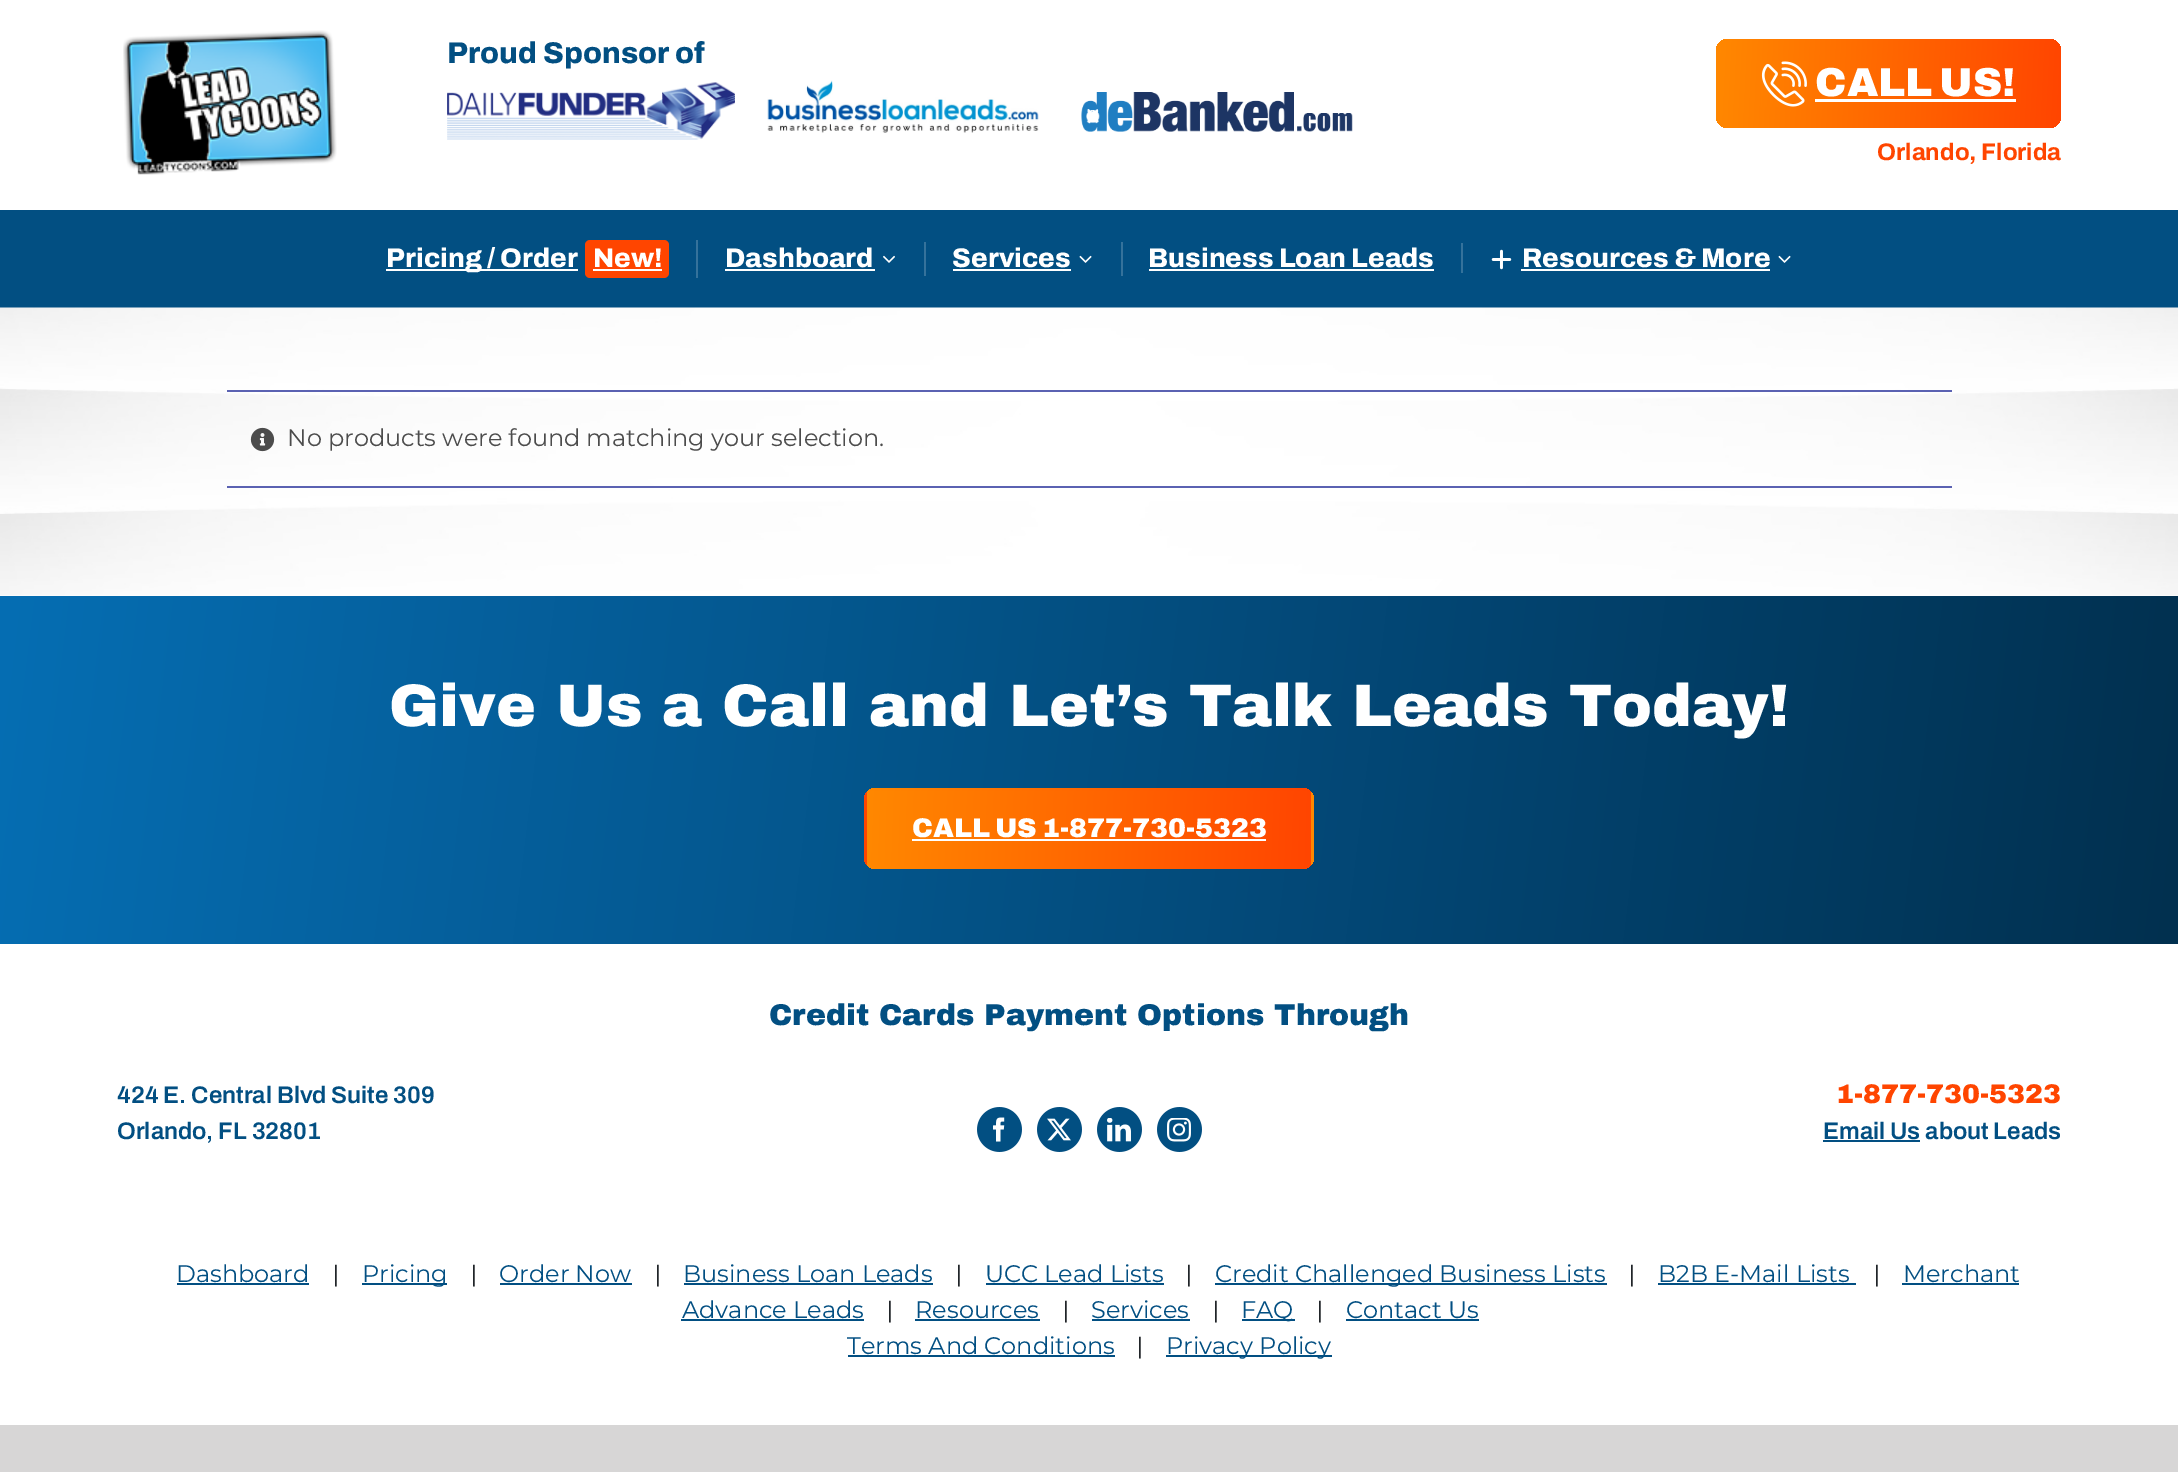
%!PS-Adobe-3.0
%%BoundingBox: 0 0 2178 1472
%%LanguageLevel: 3
%%Pages: 1
%%EndComments
%%BeginProlog
/rrect { 5 dict begin { /r /h /w /y /x } { exch def } forall
  x r add y moveto x w add y 2 copy h add r arct x w add y h add x 1 index r arct
  x y h add x y r arct x y 2 copy exch w add exch r arct closepath end } def
/drawimage { 5 dict begin { /h /w /y /x /name } { exch def } forall
  gsave x y translate w h scale
  w h 8 [w 0 0 h 0 0] name (r) file false 3 colorimage grestore end } def
%%EndProlog
%%BeginSetup
<< /PageSize [2178 1472] >> setpagedevice
%%EndSetup
%%Page: 1 1
0 1472 translate 1 -1 scale
4 setmiterlimit
0.843 0.839 0.839 setrgbcolor
0 0 2178 1472 rectfill
1 setgray
0 0 2178 1425 rectfill
(images/1.raw) 123 30 214 145 drawimage
(images/2.raw) 447 82 288 58 drawimage
(images/3.raw) 767 80 272 53 drawimage
(images/4.raw) 1081 92 272 40 drawimage
gsave 1716 39 345 89 12 rrect clip newpath
<< /ShadingType 2 /ColorSpace /DeviceRGB /Coords [1714 74 2063 92] /Extend [true true] /Function << /FunctionType 2 /Domain [0 1] /C0 [1 0.533 0] /C1 [1 0.271 0] /N 1 >> >> shfill grestore
(images/5.raw) 1761 61 46 46 drawimage
1815 99 201 3 rectfill
0.008 0.31 0.51 setrgbcolor
0 210 2178 98 rectfill
0.208 0.447 0.608 setrgbcolor
696 240 2 38 rectfill
1 setgray
386 269 192 2 rectfill
1 0.271 0 setrgbcolor
585 240 84 38 5 rrect fill
1 setgray
593 269 69 2 rectfill
0.208 0.447 0.608 setrgbcolor
924 242 2 34 rectfill
1 setgray
725 269 150 2 rectfill
(images/6.raw) 883 255 12 8 drawimage
0.208 0.447 0.608 setrgbcolor
1121 242 2 34 rectfill
1 setgray
953 269 118 2 rectfill
(images/7.raw) 1079 255 13 8 drawimage
0.208 0.447 0.608 setrgbcolor
1461 243 2 30 rectfill
1 setgray
1149 269 285 2 rectfill
(images/8.raw) 1491 249 21 21 drawimage
1521 269 249 2 rectfill
(images/7.raw) 1778 255 13 8 drawimage
(images/9.raw) 0 307 2178 289 drawimage
0.357 0.384 0.698 setrgbcolor
227 390 1725 2 rectfill
227 486 1725 2 rectfill
(images/10.raw) 250 427 25 25 drawimage
gsave newpath 0 596 moveto 2178 596 lineto 2178 944 lineto 0 944 lineto closepath clip newpath
<< /ShadingType 2 /ColorSpace /DeviceRGB /Coords [-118 621 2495 942] /Extend [true true] /Function << /FunctionType 2 /Domain [0 1] /C0 [0.024 0.443 0.722] /C1 [0 0.153 0.255] /N 1 >> >> shfill grestore
gsave
864 788 450 81 12 rrect clip newpath
gsave newpath 867 788 moveto 1311 788 lineto 1311 791 lineto 867 791 lineto closepath clip newpath
<< /ShadingType 2 /ColorSpace /DeviceRGB /Coords [866 745 1312 761] /Extend [true true] /Function << /FunctionType 2 /Domain [0 1] /C0 [1 0.533 0] /C1 [1 0.271 0] /N 1 >> >> shfill grestore
gsave newpath 864 791 moveto 867 791 lineto 867 866 lineto 864 866 lineto closepath clip newpath
<< /ShadingType 2 /ColorSpace /DeviceRGB /Coords [422 820 868 836] /Extend [true true] /Function << /FunctionType 2 /Domain [0 1] /C0 [1 0.533 0] /C1 [1 0.271 0] /N 1 >> >> shfill grestore
gsave newpath 867 791 moveto 1311 791 lineto 1311 866 lineto 867 866 lineto closepath clip newpath
<< /ShadingType 2 /ColorSpace /DeviceRGB /Coords [866 820 1312 836] /Extend [true true] /Function << /FunctionType 2 /Domain [0 1] /C0 [1 0.533 0] /C1 [1 0.271 0] /N 1 >> >> shfill grestore
gsave newpath 1311 791 moveto 1314 791 lineto 1314 866 lineto 1311 866 lineto closepath clip newpath
<< /ShadingType 2 /ColorSpace /DeviceRGB /Coords [1310 820 1756 836] /Extend [true true] /Function << /FunctionType 2 /Domain [0 1] /C0 [1 0.533 0] /C1 [1 0.271 0] /N 1 >> >> shfill grestore
gsave newpath 867 866 moveto 1311 866 lineto 1311 869 lineto 867 869 lineto closepath clip newpath
<< /ShadingType 2 /ColorSpace /DeviceRGB /Coords [866 895 1312 911] /Extend [true true] /Function << /FunctionType 2 /Domain [0 1] /C0 [1 0.533 0] /C1 [1 0.271 0] /N 1 >> >> shfill grestore
grestore
1 setgray
912 839 354 2 rectfill
(images/11.raw) 977 1107 45 45 drawimage
(images/12.raw) 1037 1107 45 45 drawimage
(images/13.raw) 1097 1107 45 45 drawimage
(images/14.raw) 1157 1107 45 45 drawimage
0.008 0.31 0.51 setrgbcolor
1823 1140 97 2 rectfill
177 1283 132 2 rectfill
362 1283 85 2 rectfill
500 1283 132 2 rectfill
684 1283 249 2 rectfill
986 1283 178 2 rectfill
1215 1283 392 2 rectfill
1658 1283 198 2 rectfill
1902 1283 117 2 rectfill
681 1319 183 2 rectfill
915 1319 125 2 rectfill
1092 1319 98 2 rectfill
1242 1319 53 2 rectfill
1346 1319 133 2 rectfill
848 1355 267 2 rectfill
1166 1355 166 2 rectfill
/Archivo-ExtraBold [30 0 0 -30 0 0] selectfont
447 63 moveto (Proud Sponsor of) show
/Archivo-Black [40.5 0 0 -40.5 0 0] selectfont
1 setgray
1815 96 moveto (CALL US!) show
/Archivo-Bold [24 0 0 -24 0 0] selectfont
1 0.271 0 setrgbcolor
1877 160 moveto (Orlando, Florida) show
/Archivo-ExtraBold [27 0 0 -27 0 0] selectfont
1 setgray
386 267 moveto (Pricing / Order) show
593 267 moveto (New!) show
725 267 moveto (Dashboard) show
952 267 moveto (Services) show
1148 267 moveto (Business Loan Leads) show
1522 267 moveto (Resources & More) show
/Montserrat-Regular [24 0 0 -24 0 0] selectfont
0.298 setgray
287 446 moveto (No products were found matching your selection.) show
/ArchivoBlack-Black [60 0 0 -60 0 0] selectfont
1 setgray
389 726 moveto (Give Us a Call and Let’s Talk Leads Today!) show
/Archivo-Black [27 0 0 -27 0 0] selectfont
912 837 moveto (CALL US 1-877-730-5323) show
/ArchivoBlack-Black [30 0 0 -30 0 0] selectfont
0.008 0.31 0.51 setrgbcolor
769 1025 moveto (Credit Cards Payment Options Through) show
/Archivo-SemiBold [24 0 0 -24 0 0] selectfont
117 1103 moveto (424 E. Central Blvd Suite 309) show
117 1139 moveto (Orlando, FL 32801) show
/Archivo-Black [27 0 0 -27 0 0] selectfont
1 0.271 0 setrgbcolor
1836 1103 moveto (1-877-730-5323) show
/Archivo-SemiBold [24 0 0 -24 0 0] selectfont
0.008 0.31 0.51 setrgbcolor
1823 1139 moveto (Email Us about Leads) show
/Montserrat-Regular [24 0 0 -24 0 0] selectfont
176 1282 moveto (Dashboard) show
/Archivo-Regular [24 0 0 -24 0 0] selectfont
0.129 0.145 0.161 setrgbcolor
333 1282 moveto (|) show
/Montserrat-Regular [24 0 0 -24 0 0] selectfont
0.008 0.31 0.51 setrgbcolor
362 1282 moveto (Pricing) show
/Archivo-Regular [24 0 0 -24 0 0] selectfont
0.129 0.145 0.161 setrgbcolor
471 1282 moveto (|) show
/Montserrat-Regular [24 0 0 -24 0 0] selectfont
0.008 0.31 0.51 setrgbcolor
499 1282 moveto (Order Now) show
/Archivo-Regular [24 0 0 -24 0 0] selectfont
0.129 0.145 0.161 setrgbcolor
655 1282 moveto (|) show
/Montserrat-Regular [24 0 0 -24 0 0] selectfont
0.008 0.31 0.51 setrgbcolor
683 1282 moveto (Business Loan Leads) show
/Archivo-Regular [24 0 0 -24 0 0] selectfont
0.129 0.145 0.161 setrgbcolor
956 1282 moveto (|) show
/Montserrat-Regular [24 0 0 -24 0 0] selectfont
0.008 0.31 0.51 setrgbcolor
985 1282 moveto (UCC Lead Lists) show
/Archivo-Regular [24 0 0 -24 0 0] selectfont
0.129 0.145 0.161 setrgbcolor
1186 1282 moveto (|) show
/Montserrat-Regular [24 0 0 -24 0 0] selectfont
0.008 0.31 0.51 setrgbcolor
1215 1282 moveto (Credit Challenged Business Lists) show
/Archivo-Regular [24 0 0 -24 0 0] selectfont
0.129 0.145 0.161 setrgbcolor
1629 1282 moveto (|) show
/Montserrat-Regular [24 0 0 -24 0 0] selectfont
0.008 0.31 0.51 setrgbcolor
1658 1282 moveto (B2B E-Mail Lists) show
/Archivo-Regular [24 0 0 -24 0 0] selectfont
0.129 0.145 0.161 setrgbcolor
1874 1282 moveto (|) show
/Montserrat-Regular [24 0 0 -24 0 0] selectfont
0.008 0.31 0.51 setrgbcolor
1903 1282 moveto (Merchant) show
682 1318 moveto (Advance Leads) show
/Archivo-Regular [24 0 0 -24 0 0] selectfont
0.129 0.145 0.161 setrgbcolor
887 1318 moveto (|) show
/Montserrat-Regular [24 0 0 -24 0 0] selectfont
0.008 0.31 0.51 setrgbcolor
915 1318 moveto (Resources) show
/Archivo-Regular [24 0 0 -24 0 0] selectfont
0.129 0.145 0.161 setrgbcolor
1063 1318 moveto (|) show
/Montserrat-Regular [24 0 0 -24 0 0] selectfont
0.008 0.31 0.51 setrgbcolor
1091 1318 moveto (Services) show
/Archivo-Regular [24 0 0 -24 0 0] selectfont
0.129 0.145 0.161 setrgbcolor
1213 1318 moveto (|) show
/Montserrat-Regular [24 0 0 -24 0 0] selectfont
0.008 0.31 0.51 setrgbcolor
1241 1318 moveto (FAQ) show
/Archivo-Regular [24 0 0 -24 0 0] selectfont
0.129 0.145 0.161 setrgbcolor
1317 1318 moveto (|) show
/Montserrat-Regular [24 0 0 -24 0 0] selectfont
0.008 0.31 0.51 setrgbcolor
1346 1318 moveto (Contact Us) show
847 1354 moveto (Terms And Conditions) show
/Archivo-Regular [24 0 0 -24 0 0] selectfont
0.129 0.145 0.161 setrgbcolor
1137 1354 moveto (|) show
/Montserrat-Regular [24 0 0 -24 0 0] selectfont
0.008 0.31 0.51 setrgbcolor
1166 1354 moveto (Privacy Policy) show
showpage
%%EOF
